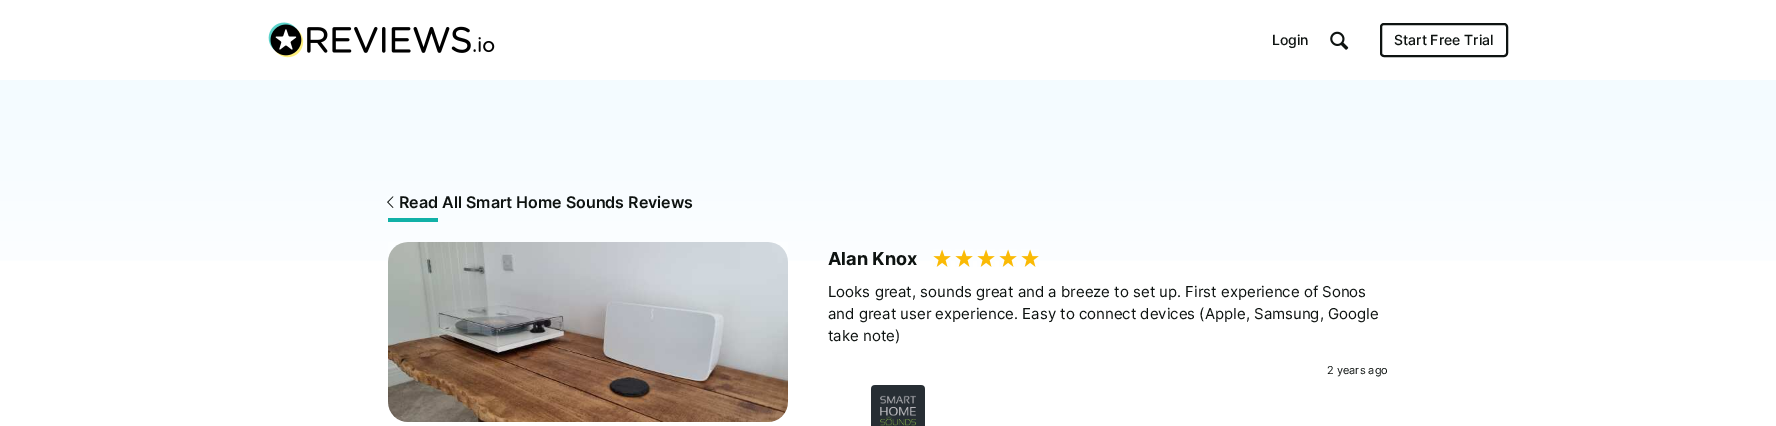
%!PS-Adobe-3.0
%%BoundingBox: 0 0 1776 426
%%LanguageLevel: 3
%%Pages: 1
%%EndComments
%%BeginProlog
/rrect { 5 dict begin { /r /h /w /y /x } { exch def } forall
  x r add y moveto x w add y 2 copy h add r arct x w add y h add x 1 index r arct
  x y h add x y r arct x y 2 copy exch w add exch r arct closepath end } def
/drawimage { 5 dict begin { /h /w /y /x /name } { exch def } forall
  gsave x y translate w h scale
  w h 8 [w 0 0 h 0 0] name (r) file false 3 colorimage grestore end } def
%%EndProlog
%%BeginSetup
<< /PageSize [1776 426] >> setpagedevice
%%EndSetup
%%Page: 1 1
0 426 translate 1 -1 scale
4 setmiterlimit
1 setgray
0 0 1776 426 rectfill
(images/1.raw) 268 22 227 36 drawimage
(images/2.raw) 1330 31 19 19 drawimage
0.055 0.075 0.067 setrgbcolor
2 setlinewidth
1381 24 126 32 3 rrect stroke
gsave newpath 0 80 moveto 1776 80 lineto 1776 261 lineto 0 261 lineto closepath clip newpath
<< /ShadingType 2 /ColorSpace /DeviceRGB /Coords [888 80 888 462] /Extend [true true] /Function << /FunctionType 3 /Domain [0 1] /Functions [<< /FunctionType 2 /Domain [0 1] /C0 [0.953 0.984 1] /C1 [1 1 1] /N 1 >> << /FunctionType 2 /Domain [0 1] /C0 [1 1 1] /C1 [1 1 1] /N 1 >>] /Bounds [0.6] /Encode [0 1 0 1] >> >> shfill grestore
(images/3.raw) 387 196 7 12 drawimage
0.067 0.694 0.655 setrgbcolor
388 218 50 4 rectfill
(images/4.raw) 388 242 400 180 drawimage
(images/5.raw) 933 249 18 18 drawimage
(images/5.raw) 955 249 18 18 drawimage
(images/5.raw) 977 249 18 18 drawimage
(images/5.raw) 999 249 18 18 drawimage
(images/5.raw) 1021 249 18 18 drawimage
(images/6.raw) 871 385 54 41 drawimage
/Inter-Medium [14 0 0 -14 0 0] selectfont
0.055 0.075 0.067 setrgbcolor
1272 45 moveto (Login) show
1394 45 moveto (Start Free Trial) show
/Inter-SemiBold [16 0 0 -16 0 0] selectfont
399 208 moveto (Read All Smart Home Sounds Reviews) show
/Inter-Bold [18 0 0 -18 0 0] selectfont
828 265 moveto (Alan Knox) show
/Inter-Regular [15 0 0 -15 0 0] selectfont
828 297 moveto (Looks great, sounds great and a breeze to set up. First experience of Sonos) show
828 319 moveto (and great user experience. Easy to connect devices \(Apple, Samsung, Google) show
828 341 moveto (take note\)) show
/Inter-Regular [11 0 0 -11 0 0] selectfont
1327 374 moveto (2 years ago) show
showpage
%%EOF
